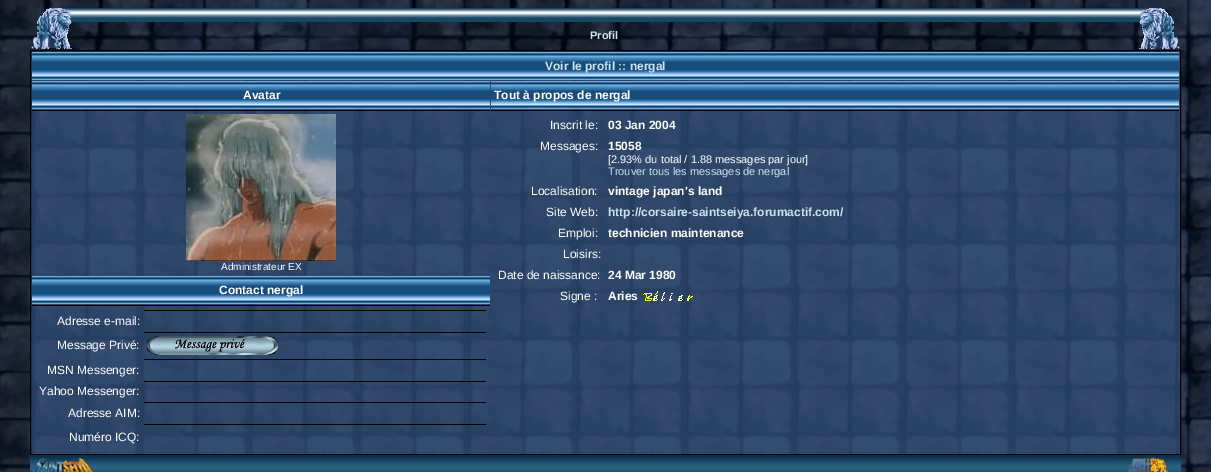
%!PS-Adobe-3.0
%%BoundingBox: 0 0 1211 472
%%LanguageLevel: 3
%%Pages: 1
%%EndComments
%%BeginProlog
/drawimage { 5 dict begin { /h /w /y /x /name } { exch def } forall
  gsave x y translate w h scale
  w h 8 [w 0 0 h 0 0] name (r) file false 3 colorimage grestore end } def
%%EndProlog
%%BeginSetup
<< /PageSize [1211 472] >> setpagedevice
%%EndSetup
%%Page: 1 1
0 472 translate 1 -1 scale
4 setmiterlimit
1 setgray
0 0 1211 472 rectfill
(images/1.raw) 0 0 1211 472 drawimage
(images/2.raw) 31 8 48 41 drawimage
(images/3.raw) 79 8 1053 14 drawimage
(images/4.raw) 1132 8 48 41 drawimage
(images/5.raw) 31 51 1149 403 drawimage
0 setgray
30.5 50.5 1150 404 rectstroke
(images/6.raw) 32 52 1147 28 drawimage
(images/7.raw) 32 81 458 28 drawimage
(images/8.raw) 491 81 688 28 drawimage
32 110 458 1 rectfill
(images/9.raw) 186 114 150 147 drawimage
491 110 688 1 rectfill
(images/10.raw) 643 291 50 10 drawimage
(images/7.raw) 32 276 458 28 drawimage
32 305 458 1 rectfill
144 310 342 1 rectfill
144 332 342 1 rectfill
(images/11.raw) 147 336 131 19 drawimage
144 359 342 1 rectfill
144 381 342 1 rectfill
144 402 342 1 rectfill
144 424 342 1 rectfill
(images/12.raw) 30 455 66 17 drawimage
(images/13.raw) 96 455 1019 17 drawimage
(images/14.raw) 1115 455 66 17 drawimage
/LiberationSans-Bold [11 0 0 -11 0 0] selectfont
0.8 0.89 0.933 setrgbcolor
590 39 moveto (Profil) show
/LiberationSans-Bold [12 0 0 -12 0 0] selectfont
545 70 moveto (Voir le profil :: nergal) show
1 setgray
243 99 moveto (Avatar) show
494 99 moveto (Tout à propos de nergal) show
/LiberationSans-Regular [10 0 0 -10 0 0] selectfont
221 270 moveto (Administrateur EX) show
/LiberationSans-Regular [12 0 0 -12 0 0] selectfont
550 129 moveto (Inscrit le:) show
/LiberationSans-Bold [12 0 0 -12 0 0] selectfont
608 129 moveto (03 Jan 2004) show
/LiberationSans-Regular [12 0 0 -12 0 0] selectfont
540 150 moveto (Messages:) show
/LiberationSans-Bold [12 0 0 -12 0 0] selectfont
608 150 moveto (15058) show
/LiberationSans-Regular [11 0 0 -11 0 0] selectfont
608 163 moveto ([2.93% du total / 1.88 messages par jour]) show
0.8 0.89 0.933 setrgbcolor
608 175 moveto (Trouver tous les messages de nergal) show
/LiberationSans-Regular [12 0 0 -12 0 0] selectfont
1 setgray
531 195 moveto (Localisation:) show
/LiberationSans-Bold [12 0 0 -12 0 0] selectfont
608 195 moveto (vintage japan's land) show
/LiberationSans-Regular [12 0 0 -12 0 0] selectfont
546 216 moveto (Site Web:) show
/LiberationSans-Bold [12 0 0 -12 0 0] selectfont
0.8 0.89 0.933 setrgbcolor
608 216 moveto (http://corsaire-saintseiya.forumactif.com/) show
/LiberationSans-Regular [12 0 0 -12 0 0] selectfont
1 setgray
558 237 moveto (Emploi:) show
/LiberationSans-Bold [12 0 0 -12 0 0] selectfont
608 237 moveto (technicien maintenance) show
/LiberationSans-Regular [12 0 0 -12 0 0] selectfont
563 258 moveto (Loisirs:) show
498 279 moveto (Date de naissance:) show
/LiberationSans-Bold [12 0 0 -12 0 0] selectfont
608 279 moveto (24 Mar 1980) show
/LiberationSans-Regular [12 0 0 -12 0 0] selectfont
560 300 moveto (Signe :) show
/LiberationSans-Bold [12 0 0 -12 0 0] selectfont
608 300 moveto (Aries) show
219 294 moveto (Contact nergal) show
/LiberationSans-Regular [12 0 0 -12 0 0] selectfont
57 325 moveto (Adresse e-mail:) show
57 349 moveto (Message Privé:) show
47 374 moveto (MSN Messenger:) show
39 395 moveto (Yahoo Messenger:) show
68 417 moveto (Adresse AIM:) show
69 441 moveto (Numéro ICQ:) show
showpage
%%EOF
